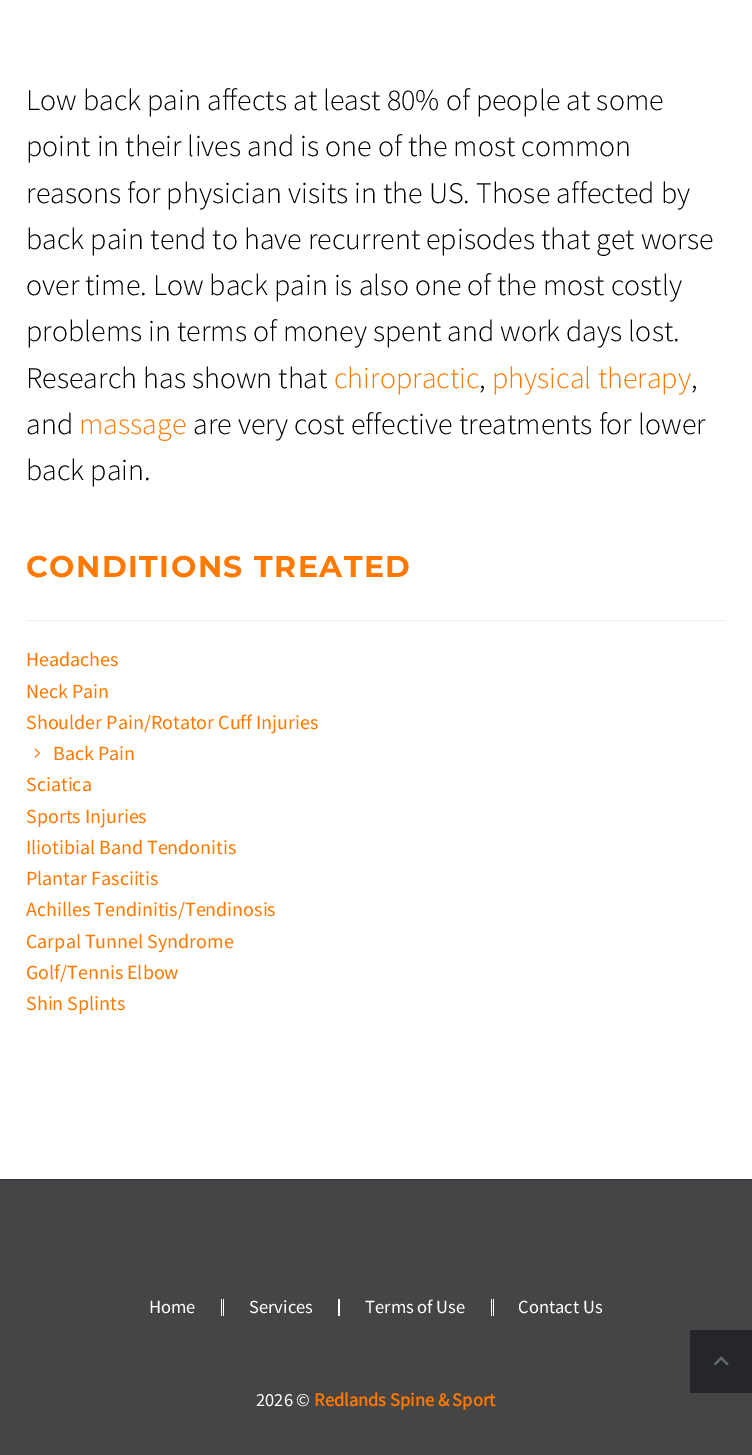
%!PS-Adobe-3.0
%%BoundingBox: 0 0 752 1455
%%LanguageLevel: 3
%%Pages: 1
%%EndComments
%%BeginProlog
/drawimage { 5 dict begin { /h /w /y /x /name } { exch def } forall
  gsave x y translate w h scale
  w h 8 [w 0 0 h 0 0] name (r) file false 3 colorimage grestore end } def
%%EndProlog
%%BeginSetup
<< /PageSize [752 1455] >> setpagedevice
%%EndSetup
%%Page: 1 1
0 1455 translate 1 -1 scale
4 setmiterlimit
0.271 setgray
0 0 752 1455 rectfill
1 setgray
0 0 752 1179 rectfill
0.933 setgray
26 620 700 1 rectfill
(images/1.raw) 34 748 6 10 drawimage
0.192 0.212 0.275 setrgbcolor
0 1179 752 1 rectfill
1 setgray
223 1299 1 17 rectfill
221 1299 1 17 rectfill
338 1299 2 17 rectfill
493 1299 1 17 rectfill
491 1299 1 17 rectfill
0.149 0.149 0.165 setrgbcolor
690 1330 62 63 rectfill
(images/2.raw) 713 1356 16 10 drawimage
/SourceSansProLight-Light [30 0 0 -30 0 0] selectfont
0 setgray
26 110 moveto (Low back pain affects at least 80% of people at some) show
26 156 moveto (point in their lives and is one of the most common) show
26 203 moveto (reasons for physician visits in the US. Those affected by) show
26 249 moveto (back pain tend to have recurrent episodes that get worse) show
26 295 moveto (over time. Low back pain is also one of the most costly) show
26 341 moveto (problems in terms of money spent and work days lost.) show
26 388 moveto (Research has shown that) show
1 0.471 0 setrgbcolor
334 388 moveto (chiropractic) show
0 setgray
479 388 moveto (,) show
1 0.471 0 setrgbcolor
492 388 moveto (physical therapy) show
0 setgray
691 388 moveto (,) show
26 434 moveto (and) show
1 0.471 0 setrgbcolor
79 434 moveto (massage) show
0 setgray
193 434 moveto (are very cost effective treatments for lower) show
26 480 moveto (back pain.) show
/Montserrat-Bold [30 0 0 -30 0 0] selectfont
1 0.471 0 setrgbcolor
26 577 moveto 1.5 0 (CONDITIONS TREATED) ashow
/SourceSansPro-Regular [20 0 0 -20 0 0] selectfont
26 666 moveto (Headaches) show
26 698 moveto (Neck Pain) show
26 729 moveto (Shoulder Pain/Rotator Cuff Injuries) show
53 760 moveto (Back Pain) show
26 791 moveto (Sciatica) show
26 823 moveto (Sports Injuries) show
26 854 moveto (Iliotibial Band Tendonitis) show
26 885 moveto (Plantar Fasciitis) show
26 916 moveto (Achilles Tendinitis/Tendinosis) show
26 948 moveto (Carpal Tunnel Syndrome) show
26 979 moveto (Golf/Tennis Elbow) show
26 1010 moveto (Shin Splints) show
/SourceSansPro-Regular [18.5 0 0 -18.5 0 0] selectfont
1 setgray
149 1313 moveto (Home) show
249 1313 moveto (Services) show
365 1313 moveto (Terms of Use) show
518 1313 moveto (Contact Us) show
256 1406 moveto (2026 ©) show
/SourceSansPro-Bold [18.5 0 0 -18.5 0 0] selectfont
1 0.471 0 setrgbcolor
314 1406 moveto (Redlands Spine & Sport) show
showpage
%%EOF
